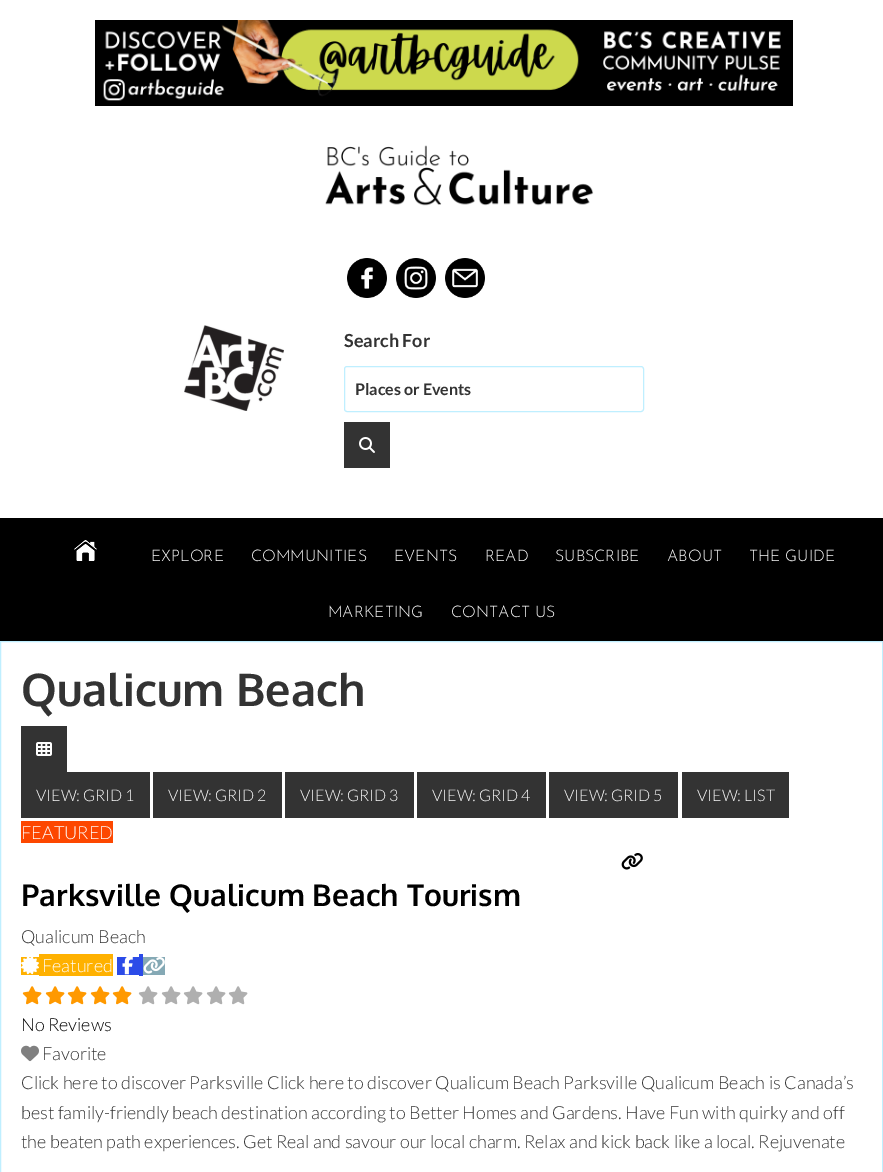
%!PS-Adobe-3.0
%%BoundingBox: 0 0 883 1172
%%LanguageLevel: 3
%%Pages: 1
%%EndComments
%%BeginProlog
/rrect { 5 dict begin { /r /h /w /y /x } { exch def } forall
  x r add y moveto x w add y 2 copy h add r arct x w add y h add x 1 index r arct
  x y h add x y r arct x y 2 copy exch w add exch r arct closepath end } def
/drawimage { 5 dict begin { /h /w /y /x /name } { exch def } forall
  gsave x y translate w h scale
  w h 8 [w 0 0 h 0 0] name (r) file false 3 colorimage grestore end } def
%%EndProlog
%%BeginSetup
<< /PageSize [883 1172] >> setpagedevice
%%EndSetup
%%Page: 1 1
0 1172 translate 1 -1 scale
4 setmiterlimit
1 setgray
0 0 883 1172 rectfill
(images/1.raw) 95 20 698 86 drawimage
(images/2.raw) 325 145 269 61 drawimage
(images/3.raw) 184 325 100 86 drawimage
(images/4.raw) 347 258 40 40 drawimage
(images/5.raw) 396 258 40 40 drawimage
(images/6.raw) 445 258 40 40 drawimage
0.749 0.937 1 setrgbcolor
344.5 366.5 299 45 2.5 rrect stroke
0.2 setgray
344 422 46 46 rectfill
(images/7.raw) 359 437 16 16 drawimage
0 setgray
0 518 883 123 rectfill
(images/8.raw) 74 540 23 21 drawimage
0.749 0.937 1 setrgbcolor
0.5 641.5 882 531 rectstroke
0.2 setgray
21 726 46 46 rectfill
(images/9.raw) 36 742 16 14 drawimage
21 772 129 46 rectfill
153 772 129 46 rectfill
285 772 129 46 rectfill
417 772 129 46 rectfill
549 772 129 46 rectfill
682 772 107 46 rectfill
0.992 0.278 0 setrgbcolor
21 821 92 22 rectfill
(images/10.raw) 621 853 22 17 drawimage
1 0.694 0 setrgbcolor
21 957 18 18 rectfill
39 954 74 22 rectfill
(images/11.raw) 21 957 18 18 drawimage
0.169 0.294 0.91 setrgbcolor
117 957 22 18 rectfill
139 954 4 22 rectfill
(images/12.raw) 122 957 11 18 drawimage
0.522 0.663 0.71 setrgbcolor
143 957 22 18 rectfill
(images/13.raw) 143 957 22 17 drawimage
(images/14.raw) 22 986 20 19 drawimage
(images/14.raw) 45 986 20 19 drawimage
(images/14.raw) 67 986 20 19 drawimage
(images/14.raw) 90 986 20 19 drawimage
(images/14.raw) 112 986 20 19 drawimage
(images/15.raw) 138 986 20 19 drawimage
(images/15.raw) 161 986 20 19 drawimage
(images/15.raw) 183 986 20 19 drawimage
(images/15.raw) 206 986 20 19 drawimage
(images/15.raw) 228 986 20 19 drawimage
(images/16.raw) 21 1045 18 17 drawimage
/Lato-Bold [18 0 0 -18 0 0] selectfont
0.2 setgray
344 347 moveto (Search For) show
/Lato-Bold [16 0 0 -16 0 0] selectfont
355 395 moveto (Places or Events) show
/JosefinSans-Light [16 0 0 -16 0 0] selectfont
1 setgray
151 561 moveto (EXPLORE) show
251 561 moveto (COMMUNITIES) show
394 561 moveto (EVENTS) show
485 561 moveto (READ) show
555 561 moveto (SUBSCRIBE) show
667 561 moveto (ABOUT) show
749 561 moveto (THE GUIDE) show
328 617 moveto (MARKETING) show
451 617 moveto (CONTACT US) show
/Oxygen-Bold [45 0 0 -45 0 0] selectfont
0.2 setgray
21 706 moveto (Qualicum Beach) show
/Lato-Light [16 0 0 -16 0 0] selectfont
1 setgray
36 801 moveto (VIEW: GRID 1) show
168 801 moveto (VIEW: GRID 2) show
300 801 moveto (VIEW: GRID 3) show
432 801 moveto (VIEW: GRID 4) show
564 801 moveto (VIEW: GRID 5) show
697 801 moveto (VIEW: LIST) show
/Lato-Light [18 0 0 -18 0 0] selectfont
21 839 moveto (FEATURED) show
/Oxygen-Bold [30 0 0 -30 0 0] selectfont
0 setgray
21 906 moveto (Parksville Qualicum Beach Tourism) show
/Lato-Light [18 0 0 -18 0 0] selectfont
0.2 setgray
21 943 moveto (Qualicum Beach) show
1 setgray
42 972 moveto (Featured) show
0 setgray
21 1031 moveto (No Reviews) show
0.2 setgray
42 1060 moveto (Favorite) show
21 1089 moveto (Click here to discover Parksville Click here to discover Qualicum Beach Parksville Qualicum Beach is Canada’s) show
21 1119 moveto (best family-friendly beach destination according to Better Homes and Gardens. Have Fun with quirky and off) show
21 1148 moveto (the beaten path experiences. Get Real and savour our local charm. Relax and kick back like a local. Rejuvenate) show
showpage
%%EOF
